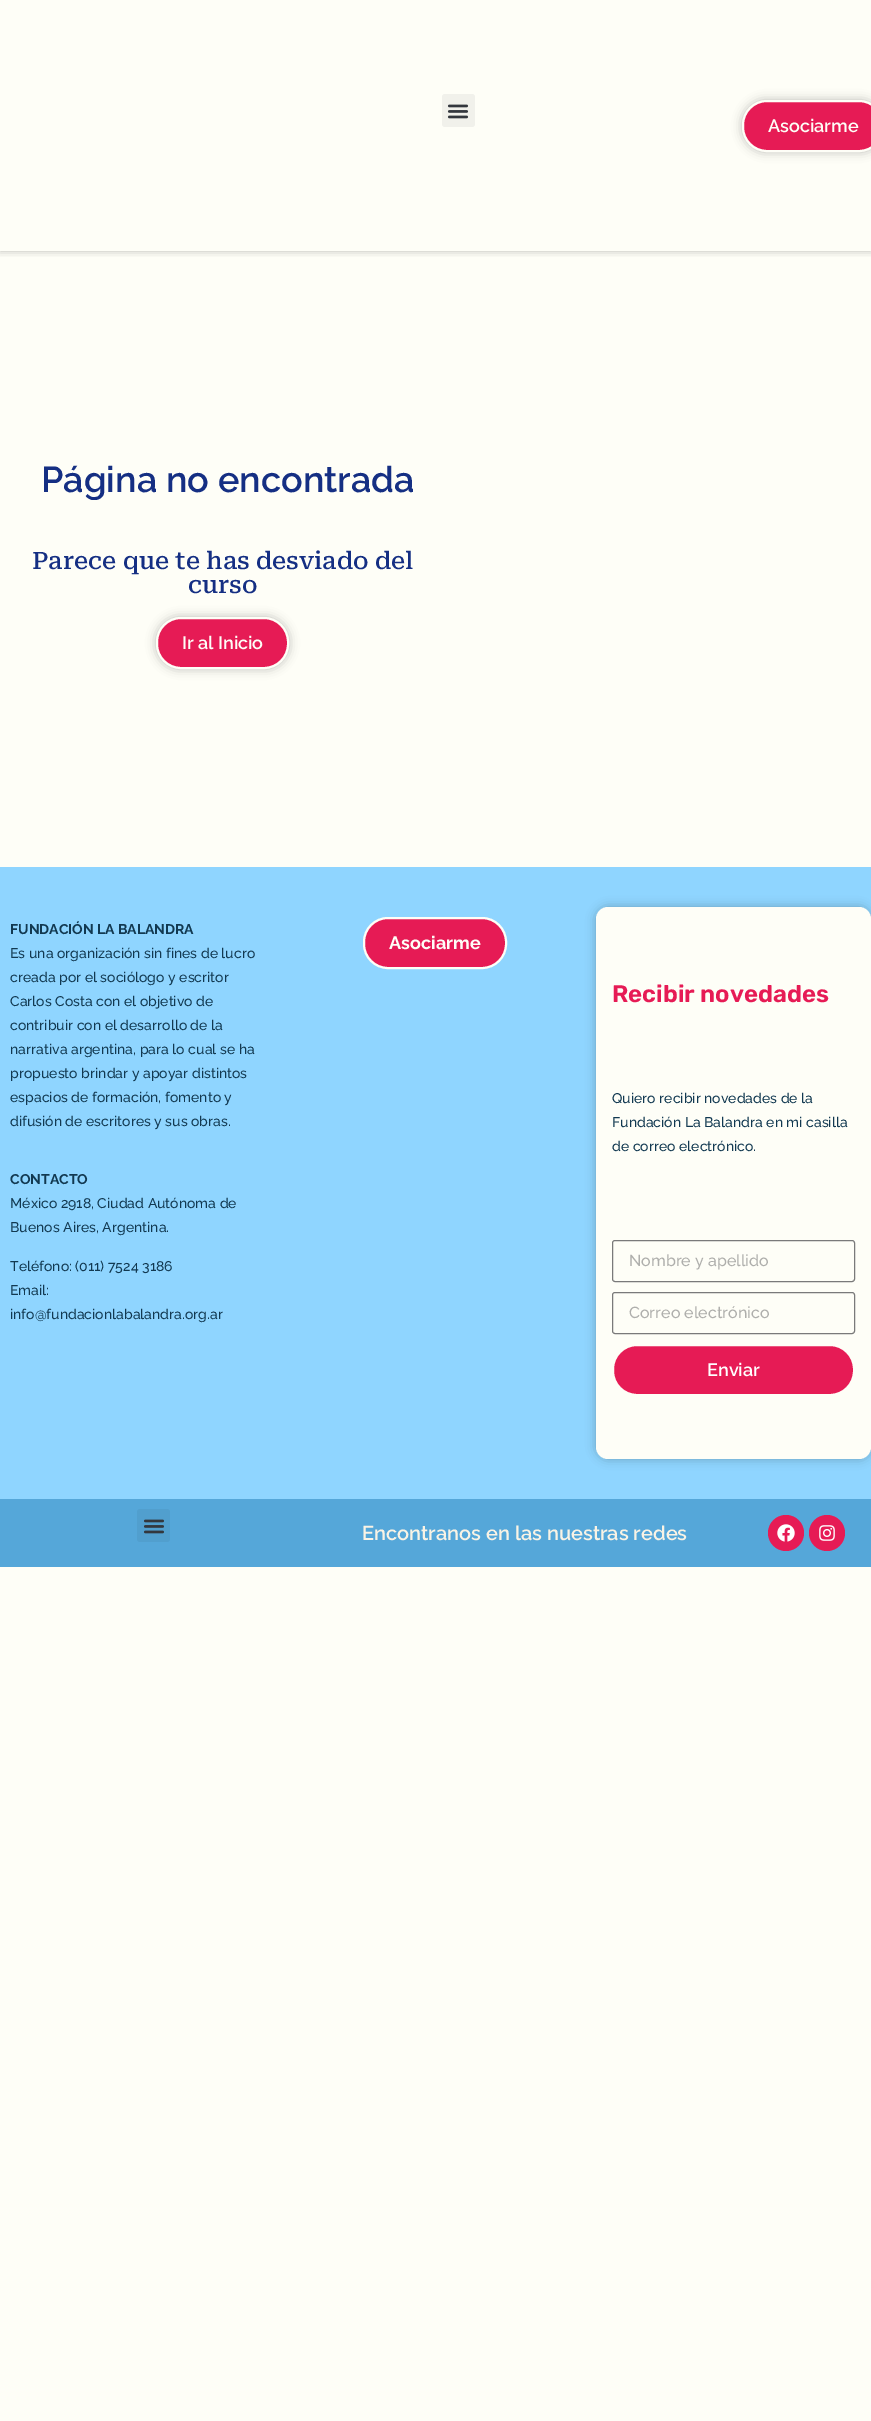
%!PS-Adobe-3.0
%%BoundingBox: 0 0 871 2421
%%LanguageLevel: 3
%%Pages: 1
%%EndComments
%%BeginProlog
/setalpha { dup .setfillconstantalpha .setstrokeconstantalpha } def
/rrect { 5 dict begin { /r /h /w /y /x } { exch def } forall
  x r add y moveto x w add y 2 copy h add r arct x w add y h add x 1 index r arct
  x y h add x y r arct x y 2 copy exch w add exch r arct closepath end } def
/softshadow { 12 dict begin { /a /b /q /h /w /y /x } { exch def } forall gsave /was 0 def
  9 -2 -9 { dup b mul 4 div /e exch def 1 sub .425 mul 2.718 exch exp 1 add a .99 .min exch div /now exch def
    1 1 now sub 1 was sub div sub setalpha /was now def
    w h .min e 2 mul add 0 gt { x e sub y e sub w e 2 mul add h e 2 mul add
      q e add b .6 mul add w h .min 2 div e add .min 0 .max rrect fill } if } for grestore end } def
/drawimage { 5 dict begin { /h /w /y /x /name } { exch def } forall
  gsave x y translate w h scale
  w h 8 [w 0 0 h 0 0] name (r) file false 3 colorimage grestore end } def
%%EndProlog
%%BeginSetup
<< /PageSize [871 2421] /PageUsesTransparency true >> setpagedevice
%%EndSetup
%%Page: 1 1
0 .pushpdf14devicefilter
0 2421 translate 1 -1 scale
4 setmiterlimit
0.996 0.996 0.969 setrgbcolor
0 0 871 2421 rectfill
gsave
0 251 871 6 rectclip
0 setgray
0 0 871 251 0 4 0.25 softshadow
grestore
0.945 0.945 0.922 setrgbcolor
442 94 33 33 3 rrect fill
(images/1.raw) 447 104 22 15 drawimage
0 setgray
742 100 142 52 25 5 0.25 softshadow
0.902 0.106 0.333 setrgbcolor
743 101 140 50 24 rrect gsave fill grestore
0.996 0.996 0.969 setrgbcolor
2 setlinewidth
stroke
0 setgray
156 617 133 52 25 5 0.25 softshadow
0.902 0.106 0.333 setrgbcolor
157 618 131 50 24 rrect gsave fill grestore
0.996 0.996 0.969 setrgbcolor
stroke
0.561 0.835 1 setrgbcolor
0 867 871 632 rectfill
0.902 0.106 0.333 setrgbcolor
364 918 142 50 24 rrect gsave fill grestore
0.996 0.996 0.969 setrgbcolor
stroke
0 setgray
596 907 275 552 12 5 0.25 softshadow
0.996 0.996 0.969 setrgbcolor
596 907 275 552 12 rrect fill
0.478 setgray
1 setlinewidth
612.5 1240.5 242 41 2.5 rrect stroke
612.5 1292.5 242 41 2.5 rrect stroke
0.902 0.106 0.333 setrgbcolor
613 1345 241 50 24 rrect gsave fill grestore
0.996 0.996 0.969 setrgbcolor
2 setlinewidth
stroke
0.333 0.655 0.851 setrgbcolor
0 1499 871 68 rectfill
0.318 0.624 0.808 setrgbcolor
137 1509 33 33 3 rrect fill
(images/2.raw) 144 1519 20 15 drawimage
0.902 0.106 0.333 setrgbcolor
newpath 786 1533 18 0 360 arc closepath fill
(images/3.raw) 777 1524 18 18 drawimage
newpath 827 1533 18 0 360 arc closepath fill
(images/4.raw) 819 1525 16 16 drawimage
/Raleway-SemiBold [18 0 0 -18 0 0] selectfont
0.996 0.996 0.969 setrgbcolor
768 132 moveto (Asociarme) show
/Raleway-SemiBold [36 0 0 -36 0 0] selectfont
0.082 0.184 0.514 setrgbcolor
41 492 moveto (Página no encontrada) show
/RobotoSerif-Medium [24 0 0 -24 0 0] selectfont
32 569 moveto (Parece que te has desviado del) show
188 593 moveto (curso) show
/Raleway-SemiBold [18 0 0 -18 0 0] selectfont
0.996 0.996 0.969 setrgbcolor
182 649 moveto (Ir al Inicio) show
/Raleway-Bold [14 0 0 -14 0 0] selectfont
0.071 0.224 0.318 setrgbcolor
10 934 moveto (FUNDACIÓN LA BALANDRA) show
/Raleway-Medium [14 0 0 -14 0 0] selectfont
10 958 moveto (Es una organización sin fines de lucro) show
10 982 moveto (creada por el sociólogo y escritor) show
10 1006 moveto (Carlos Costa con el objetivo de) show
10 1030 moveto (contribuir con el desarrollo de la) show
10 1054 moveto (narrativa argentina, para lo cual se ha) show
10 1078 moveto (propuesto brindar y apoyar distintos) show
10 1102 moveto (espacios de formación, fomento y) show
10 1126 moveto (difusión de escritores y sus obras.) show
/Raleway-Bold [14 0 0 -14 0 0] selectfont
10 1184 moveto (CONTACTO) show
/Raleway-Medium [14 0 0 -14 0 0] selectfont
10 1208 moveto (México 2918, Ciudad Autónoma de) show
10 1232 moveto (Buenos Aires, Argentina.) show
10 1271 moveto (Teléfono: \(011\) 7524 3186) show
10 1295 moveto (Email:) show
10 1319 moveto (info@fundacionlabalandra.org.ar) show
/Raleway-Bold [18 0 0 -18 0 0] selectfont
0.996 0.996 0.969 setrgbcolor
389 949 moveto (Asociarme) show
/Rubik-SemiBold [24 0 0 -24 0 0] selectfont
0.902 0.106 0.333 setrgbcolor
612 1002 moveto (Recibir novedades) show
/Raleway-Medium [14 0 0 -14 0 0] selectfont
0.071 0.224 0.318 setrgbcolor
612 1103 moveto (Quiero recibir novedades de la) show
612 1127 moveto (Fundación La Balandra en mi casilla) show
612 1151 moveto (de correo electrónico.) show
/Raleway-Medium [16 0 0 -16 0 0] selectfont
0.686 0.686 0.675 setrgbcolor
629 1266 moveto (Nombre y apellido) show
629 1318 moveto (Correo electrónico) show
/Raleway-SemiBold [18 0 0 -18 0 0] selectfont
1 setgray
707 1376 moveto (Enviar) show
/Raleway-SemiBold [20 0 0 -20 0 0] selectfont
0.976 0.953 0.898 setrgbcolor
362 1540 moveto (Encontranos en las nuestras redes) show
.poppdf14devicefilter showpage
%%EOF
